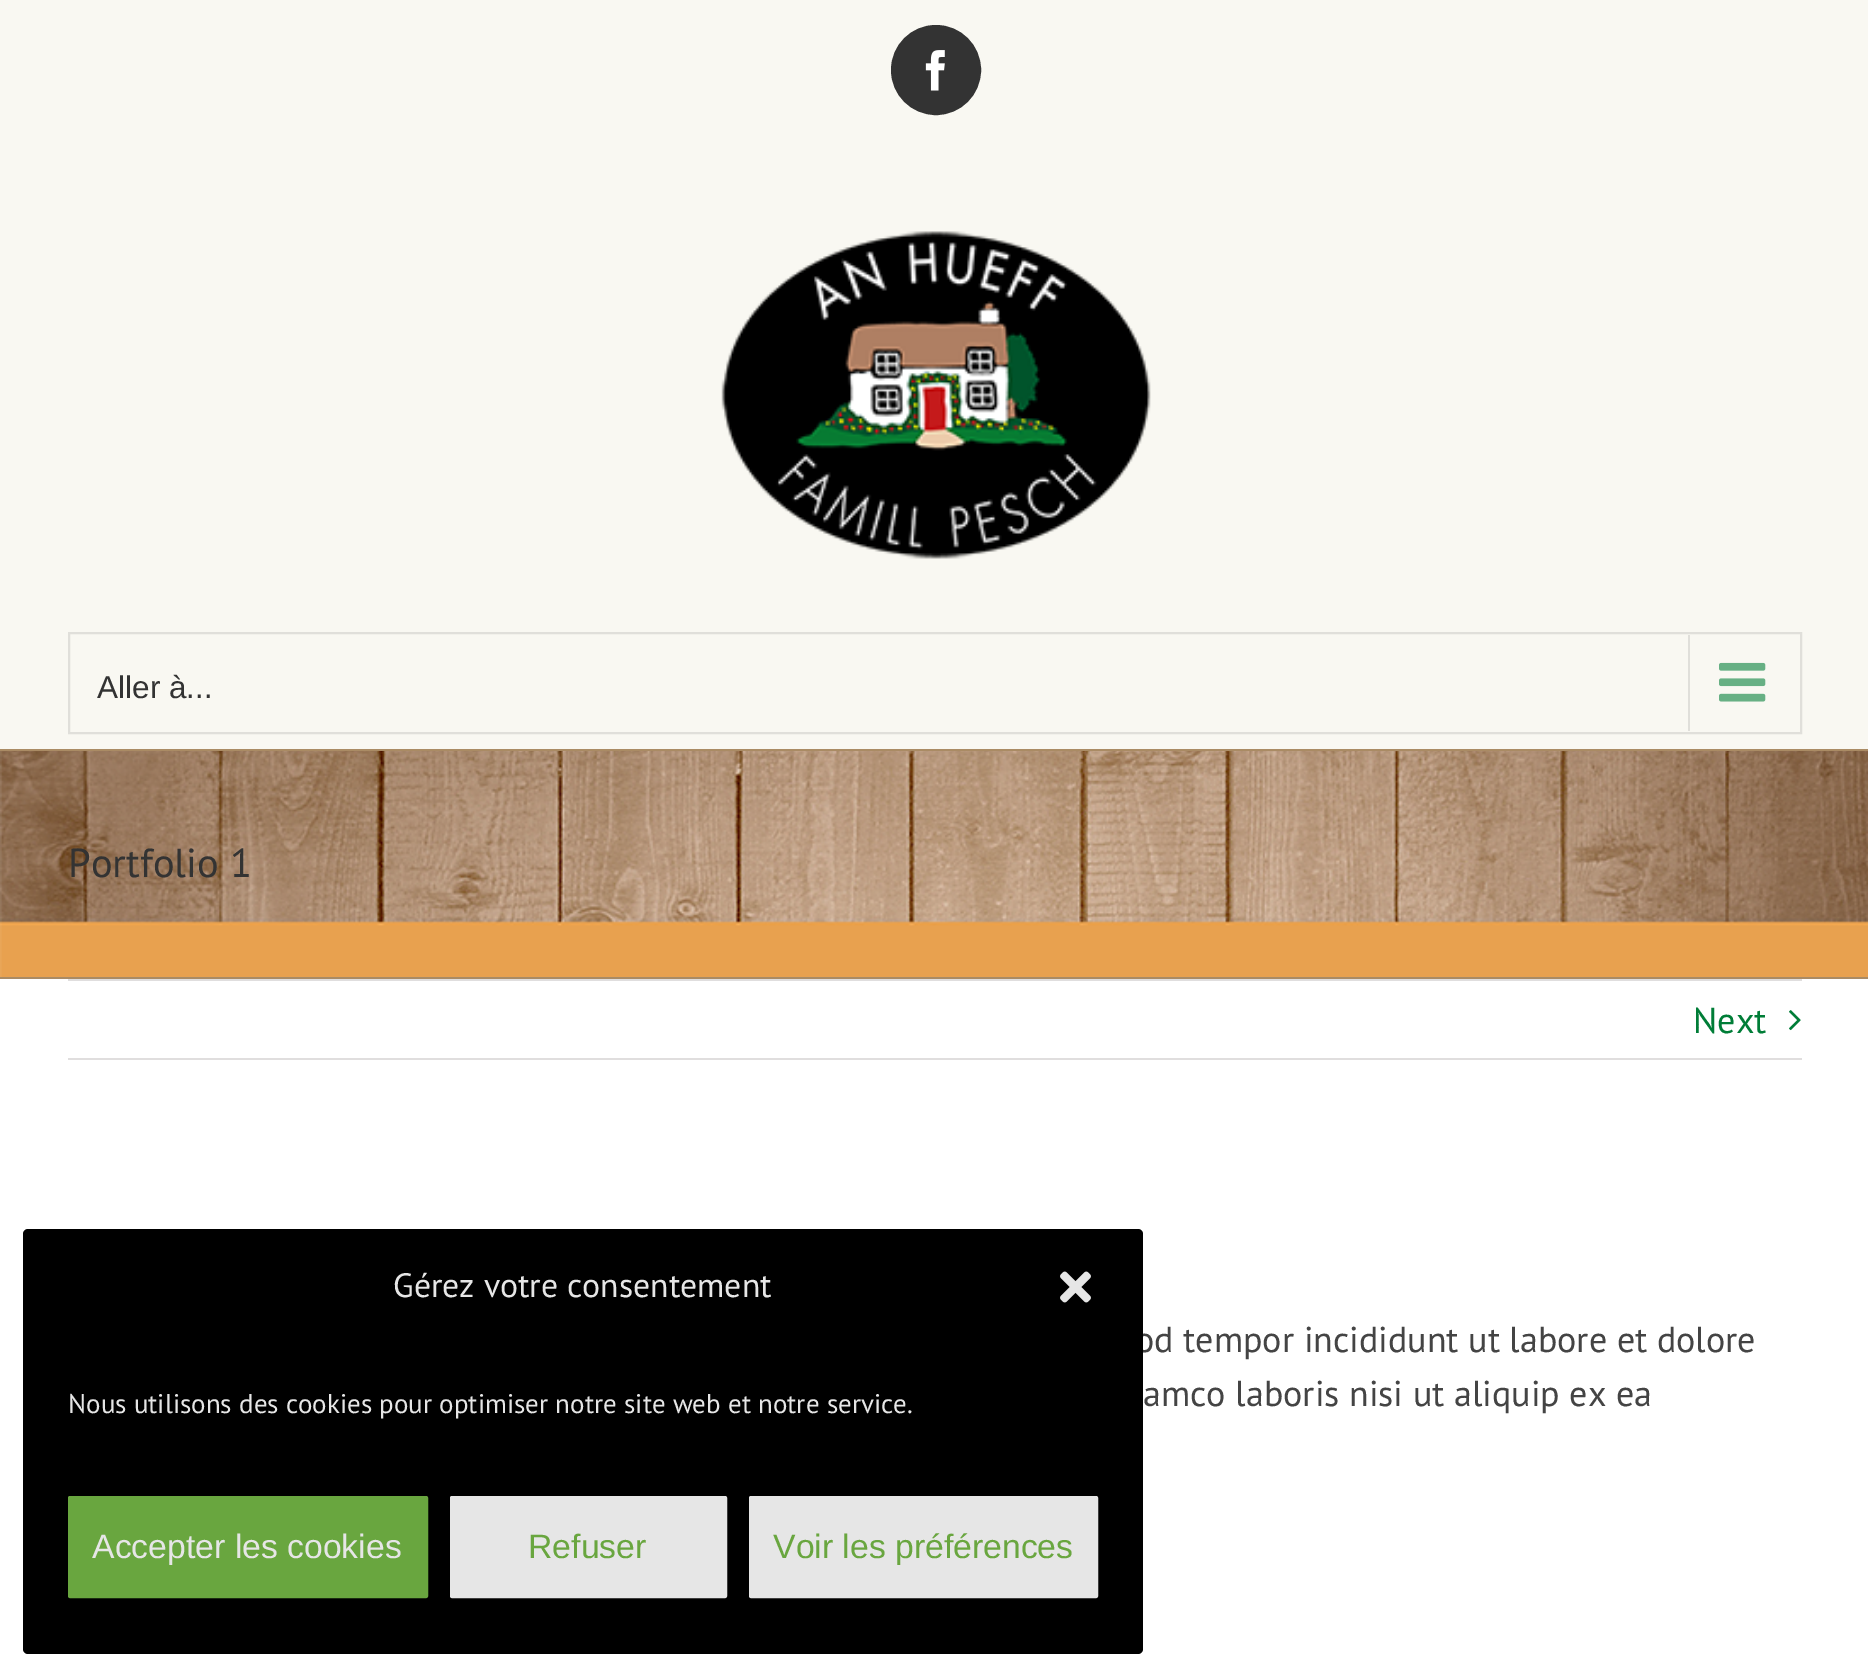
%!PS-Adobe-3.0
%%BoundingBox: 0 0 1868 1675
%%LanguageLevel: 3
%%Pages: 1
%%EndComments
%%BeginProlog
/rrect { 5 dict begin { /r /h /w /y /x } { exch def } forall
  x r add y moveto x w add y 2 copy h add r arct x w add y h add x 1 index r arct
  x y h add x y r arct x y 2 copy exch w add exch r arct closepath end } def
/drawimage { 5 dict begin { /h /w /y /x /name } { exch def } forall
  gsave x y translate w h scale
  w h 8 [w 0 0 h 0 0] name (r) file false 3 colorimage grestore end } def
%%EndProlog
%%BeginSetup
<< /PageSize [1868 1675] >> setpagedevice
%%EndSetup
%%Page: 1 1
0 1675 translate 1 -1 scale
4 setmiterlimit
1 setgray
0 0 1868 1675 rectfill
0.976 0.973 0.949 setrgbcolor
0 0 1868 173 rectfill
0.2 setgray
newpath 936 70 44 0 360 arc closepath gsave fill grestore
2 setlinewidth
stroke
(images/1.raw) 925 50 20 41 drawimage
0.976 0.973 0.949 setrgbcolor
0 173 1868 576 rectfill
(images/2.raw) 721 231 430 328 drawimage
0.878 0.875 0.855 setrgbcolor
69 633 1732 100 rectstroke
1688 635 2 96 rectfill
(images/3.raw) 1719 662 47 40 drawimage
(images/4.raw) 0 751 1868 226 drawimage
0.667 0.545 0.392 setrgbcolor
0 749 1868 2 rectfill
0 977 1868 2 rectfill
0.878 0.871 0.871 setrgbcolor
68 979 1734 2 rectfill
68 1058 1734 2 rectfill
(images/5.raw) 1789 1010 12 21 drawimage
/LiberationSans-Regular [31.5 0 0 -31.5 0 0] selectfont
0.2 setgray
97 698 moveto (Aller à...) show
/PTSans-Regular [40.5 0 0 -40.5 0 0] selectfont
68 877 moveto (Portfolio 1) show
/PTSans-Regular [36 0 0 -36 0 0] selectfont
0 0.49 0.216 setrgbcolor
1693 1033 moveto (Next) show
0.267 setgray
1135 1352 moveto (od tempor incididunt ut labore et dolore) show
1143 1406 moveto (amco laboris nisi ut aliquip ex ea) show
0 setgray
23 1229 1120 425 5 rrect fill
/PTSans-Regular [33.75 0 0 -33.75 0 0] selectfont
0.902 setgray
393 1297 moveto (Gérez votre consentement) show
(images/6.raw) 1060 1271 31 32 drawimage
/PTSans-Regular [27 0 0 -27 0 0] selectfont
68 1413 moveto (Nous utilisons des cookies pour optimiser notre site web et notre service.) show
0.412 0.651 0.247 setrgbcolor
69 1497 358 100 1 rrect gsave fill grestore
stroke
/LiberationSans-Regular [33.75 0 0 -33.75 0 0] selectfont
0.902 setgray
92 1558 moveto (Accepter les cookies) show
451 1497 275 100 1 rrect gsave fill grestore
stroke
0.412 0.651 0.247 setrgbcolor
528 1558 moveto (Refuser) show
0.902 setgray
750 1497 347 100 1 rrect gsave fill grestore
stroke
0.412 0.651 0.247 setrgbcolor
773 1558 moveto (Voir les préférences) show
showpage
%%EOF
